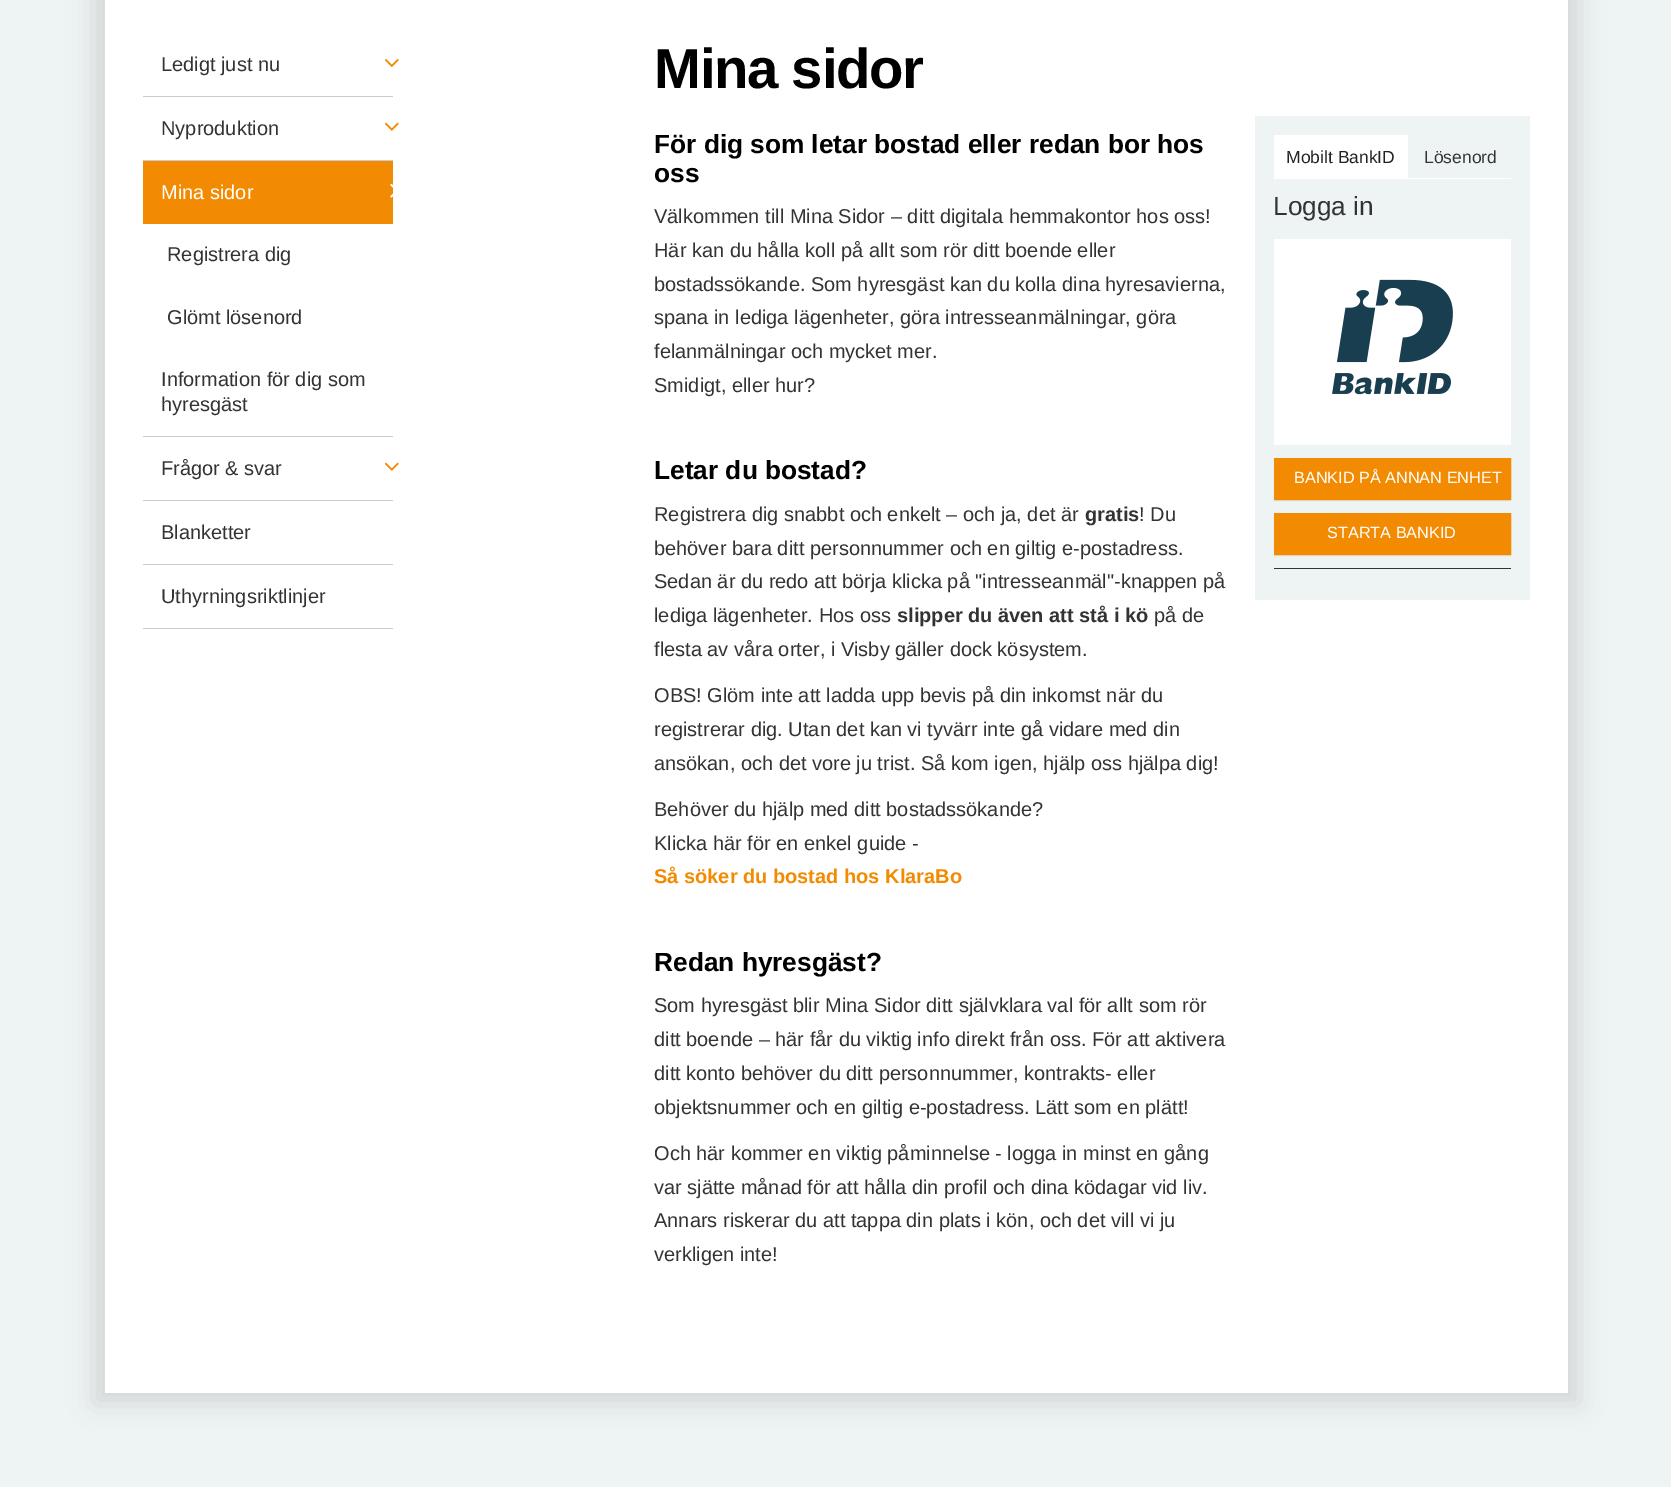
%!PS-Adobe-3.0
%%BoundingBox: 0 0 1671 1487
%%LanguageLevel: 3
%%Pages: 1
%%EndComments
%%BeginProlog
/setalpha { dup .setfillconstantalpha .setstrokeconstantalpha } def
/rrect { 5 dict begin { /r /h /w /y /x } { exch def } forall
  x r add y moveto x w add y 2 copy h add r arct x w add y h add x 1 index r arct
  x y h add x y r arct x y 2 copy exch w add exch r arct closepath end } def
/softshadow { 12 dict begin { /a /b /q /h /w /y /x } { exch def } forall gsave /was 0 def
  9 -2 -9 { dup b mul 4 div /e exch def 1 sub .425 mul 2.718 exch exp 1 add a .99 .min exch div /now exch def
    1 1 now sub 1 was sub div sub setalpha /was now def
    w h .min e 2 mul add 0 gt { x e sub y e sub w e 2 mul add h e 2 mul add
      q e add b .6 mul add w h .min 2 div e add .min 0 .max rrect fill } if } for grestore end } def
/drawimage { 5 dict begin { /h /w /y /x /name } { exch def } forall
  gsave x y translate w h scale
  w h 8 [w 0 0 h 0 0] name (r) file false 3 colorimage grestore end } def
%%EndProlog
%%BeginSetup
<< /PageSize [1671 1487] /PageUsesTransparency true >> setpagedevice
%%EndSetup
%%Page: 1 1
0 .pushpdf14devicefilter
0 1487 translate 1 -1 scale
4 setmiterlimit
0.933 0.957 0.957 setrgbcolor
0 0 1671 1487 rectfill
0.839 setgray
93 -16 1487 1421 0 12.5 1 softshadow
1 setgray
105 0 1463 1393 rectfill
0.8 setgray
143 96 250 1 rectfill
(images/1.raw) 384 59 15 8 drawimage
143 160 250 1 rectfill
(images/2.raw) 384 122 15 9 drawimage
0.949 0.545 0.004 setrgbcolor
143 161 250 63 rectfill
(images/3.raw) 390 183 3 15 drawimage
0.8 setgray
143 436 250 1 rectfill
143 500 250 1 rectfill
(images/2.raw) 384 462 15 9 drawimage
143 564 250 1 rectfill
143 628 250 1 rectfill
0.933 0.957 0.957 setrgbcolor
1255 116 275 484 rectfill
1 setgray
1274 178 237 1 rectfill
1274 135 134 43 rectfill
1274 239 237 206 rectfill
(images/4.raw) 1332 279 121 116 drawimage
0 setgray
1274 459 237 42 0 1 0.05 softshadow
0.949 0.545 0.004 setrgbcolor
newpath 1275.5 459.5 moveto 1509.5 459.5 lineto 1509.5 498.5 lineto 1275.5 498.5 lineto closepath gsave fill grestore
3 setlinewidth
stroke
0 setgray
1274 514 237 42 0 1 0.05 softshadow
0.949 0.545 0.004 setrgbcolor
newpath 1275.5 514.5 moveto 1509.5 514.5 lineto 1509.5 553.5 lineto 1275.5 553.5 lineto closepath gsave fill grestore
stroke
0.2 setgray
1274 568 237 1 rectfill
/LiberationSans-Regular [20 0 0 -20 0 0] selectfont
161 71 moveto (Ledigt just nu) show
161 135 moveto (Nyproduktion) show
1 setgray
161 199 moveto (Mina sidor) show
0.2 setgray
167 261 moveto (Registrera dig) show
167 324 moveto (Glömt lösenord) show
161 386 moveto (Information för dig som) show
161 411 moveto (hyresgäst) show
161 475 moveto (Frågor & svar) show
161 539 moveto (Blanketter) show
161 603 moveto (Uthyrningsriktlinjer) show
/LiberationSans-Bold [56.25 0 0 -56.25 0 0] selectfont
0 setgray
654 88 moveto -1.25 0 (Mina sidor) ashow
/LiberationSans-Bold [26.25 0 0 -26.25 0 0] selectfont
654 153 moveto (För dig som letar bostad eller redan bor hos) show
654 182 moveto (oss) show
/LiberationSans-Regular [20 0 0 -20 0 0] selectfont
0.2 setgray
654 223 moveto (Välkommen till Mina Sidor – ditt digitala hemmakontor hos oss!) show
654 257 moveto (Här kan du hålla koll på allt som rör ditt boende eller) show
654 291 moveto (bostadssökande. Som hyresgäst kan du kolla dina hyresavierna,) show
654 324 moveto (spana in lediga lägenheter, göra intresseanmälningar, göra) show
654 358 moveto (felanmälningar och mycket mer.) show
654 392 moveto (Smidigt, eller hur?) show
/LiberationSans-Bold [26.25 0 0 -26.25 0 0] selectfont
0 setgray
654 479 moveto (Letar du bostad?) show
/LiberationSans-Regular [20 0 0 -20 0 0] selectfont
0.2 setgray
654 521 moveto (Registrera dig snabbt och enkelt – och ja, det är) show
/LiberationSans-Bold [20 0 0 -20 0 0] selectfont
1085 521 moveto (gratis) show
/LiberationSans-Regular [20 0 0 -20 0 0] selectfont
1139 521 moveto (! Du) show
654 555 moveto (behöver bara ditt personnummer och en giltig e-postadress.) show
654 588 moveto (Sedan är du redo att börja klicka på "intresseanmäl"-knappen på) show
654 622 moveto (lediga lägenheter. Hos oss) show
/LiberationSans-Bold [20 0 0 -20 0 0] selectfont
897 622 moveto (slipper du även att stå i kö) show
/LiberationSans-Regular [20 0 0 -20 0 0] selectfont
1154 622 moveto (på de) show
654 656 moveto (flesta av våra orter, i Visby gäller dock kösystem.) show
654 702 moveto (OBS! Glöm inte att ladda upp bevis på din inkomst när du) show
654 736 moveto (registrerar dig. Utan det kan vi tyvärr inte gå vidare med din) show
654 770 moveto (ansökan, och det vore ju trist. Så kom igen, hjälp oss hjälpa dig!) show
654 816 moveto (Behöver du hjälp med ditt bostadssökande?) show
654 850 moveto (Klicka här för en enkel guide -) show
/LiberationSans-Bold [20 0 0 -20 0 0] selectfont
0.949 0.545 0.004 setrgbcolor
654 883 moveto (Så söker du bostad hos KlaraBo) show
/LiberationSans-Bold [26.25 0 0 -26.25 0 0] selectfont
0 setgray
654 971 moveto (Redan hyresgäst?) show
/LiberationSans-Regular [20 0 0 -20 0 0] selectfont
0.2 setgray
654 1012 moveto (Som hyresgäst blir Mina Sidor ditt självklara val för allt som rör) show
654 1046 moveto (ditt boende – här får du viktig info direkt från oss. För att aktivera) show
654 1080 moveto (ditt konto behöver du ditt personnummer, kontrakts- eller) show
654 1114 moveto (objektsnummer och en giltig e-postadress. Lätt som en plätt!) show
654 1160 moveto (Och här kommer en viktig påminnelse - logga in minst en gång) show
654 1194 moveto (var sjätte månad för att hålla din profil och dina ködagar vid liv.) show
654 1227 moveto (Annars riskerar du att tappa din plats i kön, och det vill vi ju) show
654 1261 moveto (verkligen inte!) show
/LiberationSans-Regular [17.5 0 0 -17.5 0 0] selectfont
0.133 setgray
1286 163 moveto (Mobilt BankID) show
0.2 setgray
1424 163 moveto (Lösenord) show
/LiberationSans-Regular [26.25 0 0 -26.25 0 0] selectfont
1273 215 moveto (Logga in) show
/LiberationSans-Regular [16.25 0 0 -16.25 0 0] selectfont
1 setgray
1294 483 moveto (BANKID PÅ ANNAN ENHET) show
1327 538 moveto (STARTA BANKID) show
.poppdf14devicefilter showpage
%%EOF
